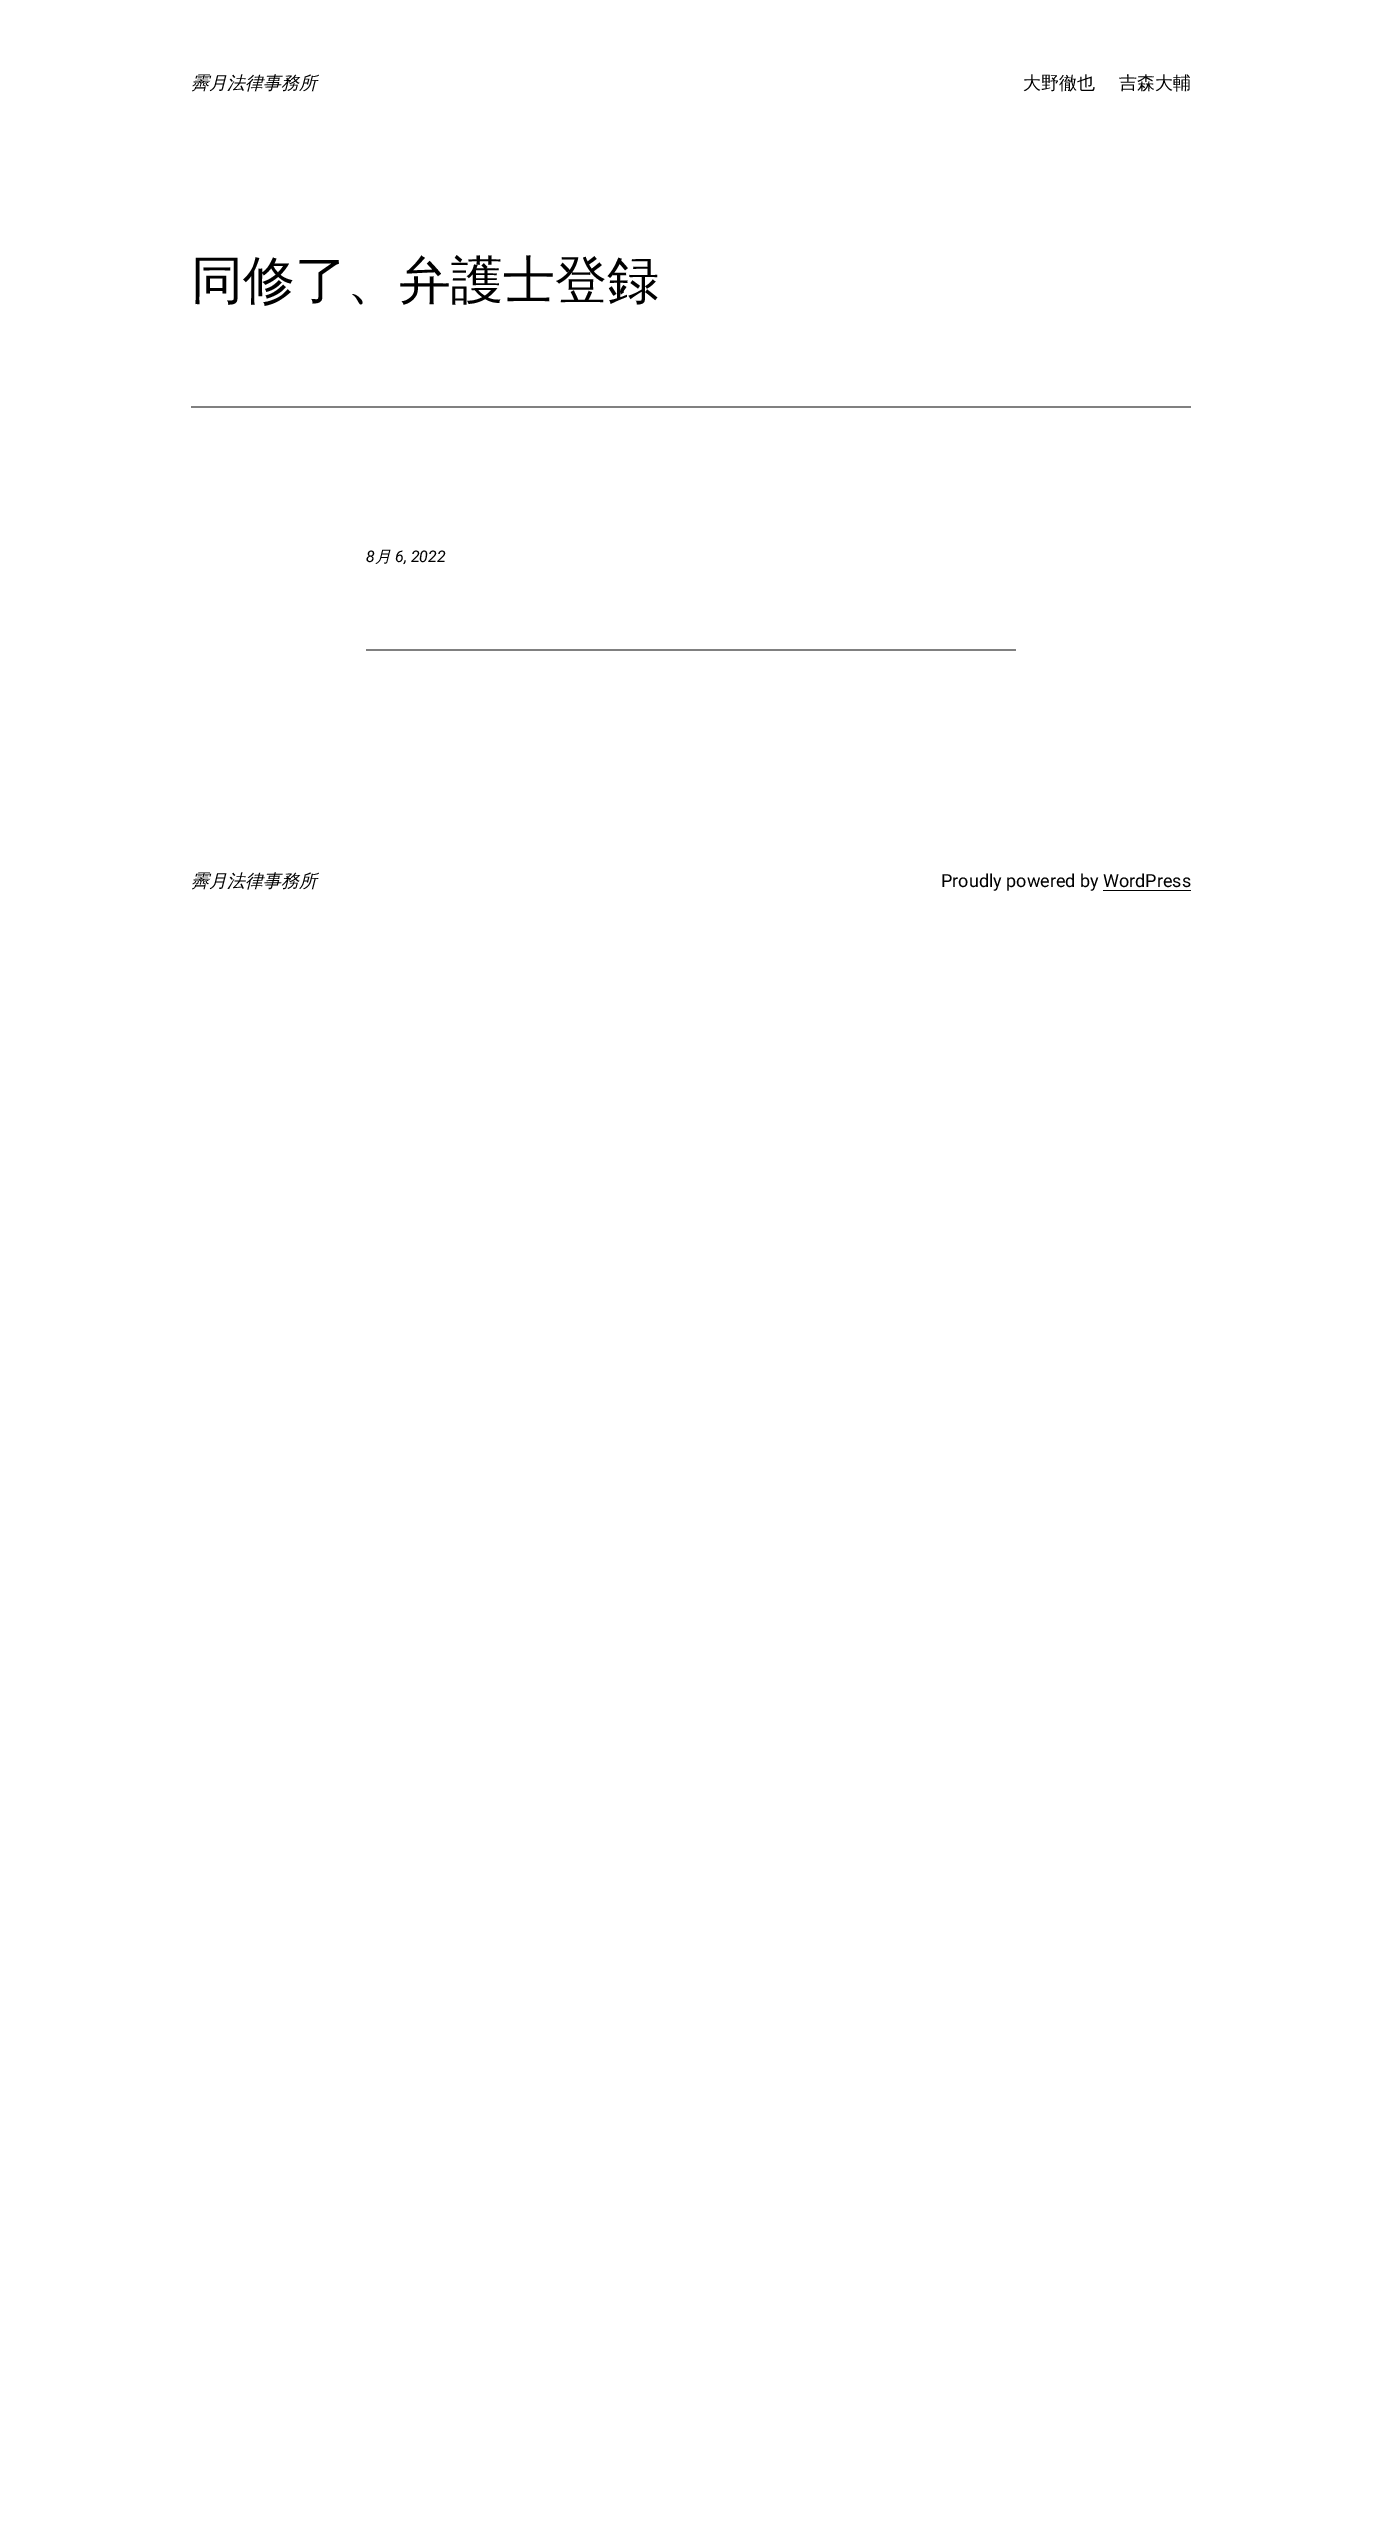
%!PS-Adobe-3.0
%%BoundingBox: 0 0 1382 2527
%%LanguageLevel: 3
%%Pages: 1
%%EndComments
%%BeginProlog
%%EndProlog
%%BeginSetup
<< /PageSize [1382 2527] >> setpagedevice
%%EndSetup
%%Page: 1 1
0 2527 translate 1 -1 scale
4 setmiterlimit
1 setgray
0 0 1382 2527 rectfill
0.502 setgray
191 406 1000 2 rectfill
366 649 650 2 rectfill
0 setgray
1103 890 88 1 rectfill
/WenQuanYiZenHei-MediumItalic [18 0 0 -18 0 0] selectfont
191 89 moveto (霽月法律事務所) show
/WenQuanYiZenHei-Medium [18 0 0 -18 0 0] selectfont
1023 89 moveto (大野徹也) show
1119 89 moveto (吉森大輔) show
/WenQuanYiZenHei-Medium [52 0 0 -52 0 0] selectfont
191 298 moveto (同修了、弁護士登録) show
/Roboto-Italic [16 0 0 -16 0 0] selectfont
366 562 moveto (8) show
/WenQuanYiZenHei-MediumItalic [16 0 0 -16 0 0] selectfont
375 562 moveto (月) show
/Roboto-Italic [16 0 0 -16 0 0] selectfont
395 562 moveto (6, 2022) show
/WenQuanYiZenHei-MediumItalic [18 0 0 -18 0 0] selectfont
191 887 moveto (霽月法律事務所) show
/Roboto-Regular [18 0 0 -18 0 0] selectfont
941 887 moveto (Proudly powered by WordPress) show
showpage
%%EOF
